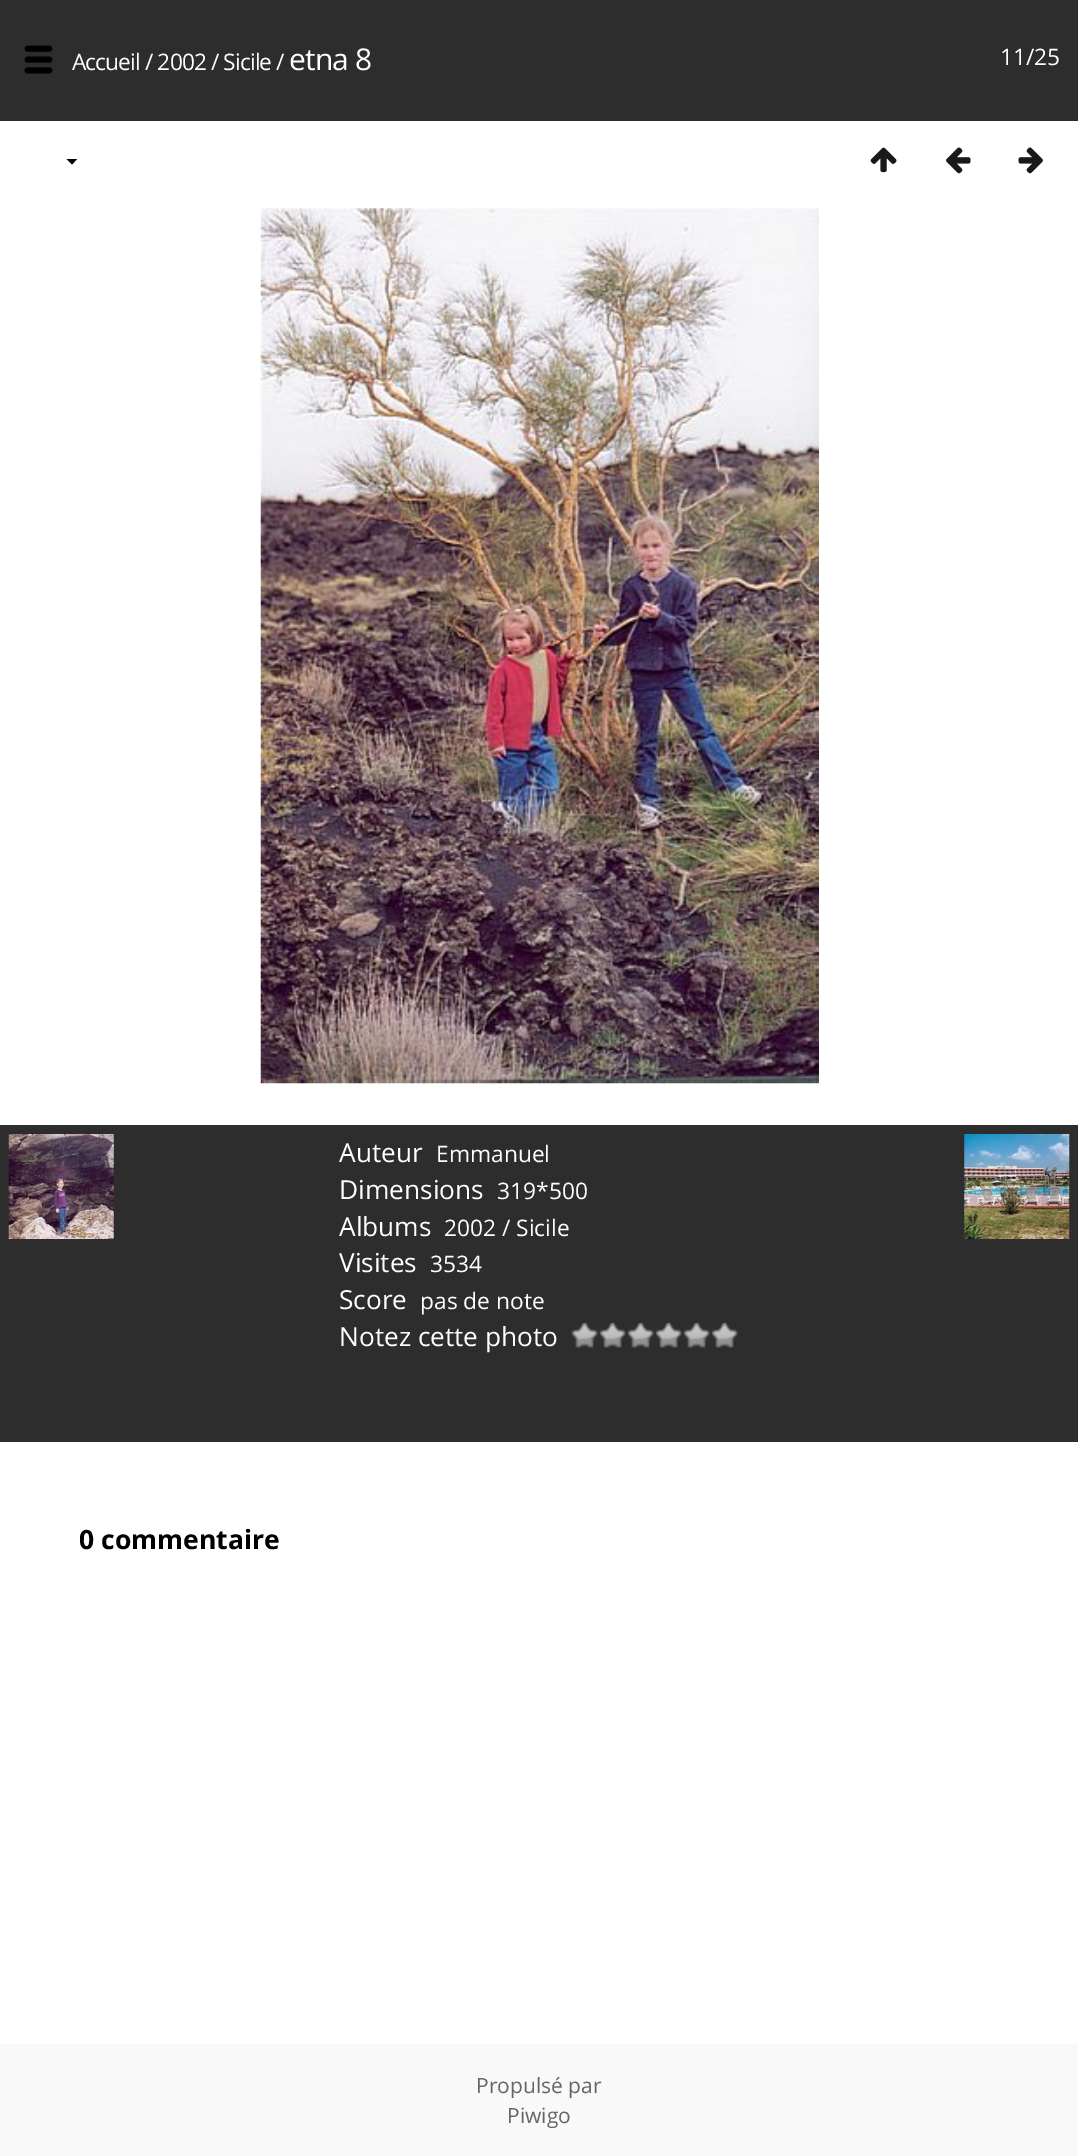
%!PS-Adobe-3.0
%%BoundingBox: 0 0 1078 2156
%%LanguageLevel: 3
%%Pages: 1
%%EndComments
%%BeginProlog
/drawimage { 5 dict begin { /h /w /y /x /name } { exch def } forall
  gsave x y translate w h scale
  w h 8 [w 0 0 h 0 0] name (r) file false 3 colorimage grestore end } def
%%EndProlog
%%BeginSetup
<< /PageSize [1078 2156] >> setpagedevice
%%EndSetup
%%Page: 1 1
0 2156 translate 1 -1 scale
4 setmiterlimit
1 setgray
0 0 1078 2156 rectfill
0.176 setgray
0 0 1078 121 rectfill
(images/1.raw) 24 45 29 29 drawimage
0 setgray
newpath 66.5 159 moveto 77 159 lineto 72 164.5 lineto closepath fill
(images/2.raw) 870 147 27 26 drawimage
(images/3.raw) 946 147 25 27 drawimage
(images/4.raw) 1018 147 25 27 drawimage
(images/5.raw) 260 208 559 876 drawimage
0.176 setgray
0 1125 1078 317 rectfill
(images/6.raw) 8 1134 106 105 drawimage
(images/7.raw) 964 1134 106 105 drawimage
(images/8.raw) 570 1323 29 25 drawimage
(images/9.raw) 598 1323 29 25 drawimage
(images/9.raw) 626 1323 29 25 drawimage
(images/9.raw) 654 1323 29 25 drawimage
(images/9.raw) 682 1323 29 25 drawimage
(images/10.raw) 710 1323 29 25 drawimage
0.976 setgray
0 2044 1078 112 rectfill
/OpenSans-Regular [22.75 0 0 -22.75 0 0] selectfont
1 setgray
72 70 moveto -0.9 0 (Accueil / 2002 / Sicile /) ashow
/OpenSans-Regular [30 0 0 -30 0 0] selectfont
289 70 moveto -0.9 0 (etna 8) ashow
/OpenSans-Regular [22.75 0 0 -22.75 0 0] selectfont
1000 65 moveto (11/25) show
/OpenSans-Regular [26.25 0 0 -26.25 0 0] selectfont
339 1162 moveto (Auteur) show
/OpenSans-Regular [22.75 0 0 -22.75 0 0] selectfont
436 1162 moveto (Emmanuel) show
/OpenSans-Regular [26.25 0 0 -26.25 0 0] selectfont
339 1199 moveto (Dimensions) show
/OpenSans-Regular [22.75 0 0 -22.75 0 0] selectfont
497 1199 moveto (319*500) show
/OpenSans-Regular [26.25 0 0 -26.25 0 0] selectfont
339 1236 moveto (Albums) show
/OpenSans-Regular [22.75 0 0 -22.75 0 0] selectfont
444 1236 moveto (2002 / Sicile) show
/OpenSans-Regular [26.25 0 0 -26.25 0 0] selectfont
339 1272 moveto (Visites) show
/OpenSans-Regular [22.75 0 0 -22.75 0 0] selectfont
430 1272 moveto (3534) show
/OpenSans-Regular [26.25 0 0 -26.25 0 0] selectfont
339 1309 moveto (Score) show
/OpenSans-Regular [22.75 0 0 -22.75 0 0] selectfont
420 1309 moveto (pas de note) show
/OpenSans-Regular [26.25 0 0 -26.25 0 0] selectfont
339 1346 moveto (Notez cette photo) show
/OpenSans-Bold [26.5 0 0 -26.5 0 0] selectfont
0 setgray
79 1549 moveto (0 commentaire) show
/OpenSans-Regular [21 0 0 -21 0 0] selectfont
0.4 setgray
476 2093 moveto (Propulsé par) show
507 2123 moveto (Piwigo) show
showpage
%%EOF
